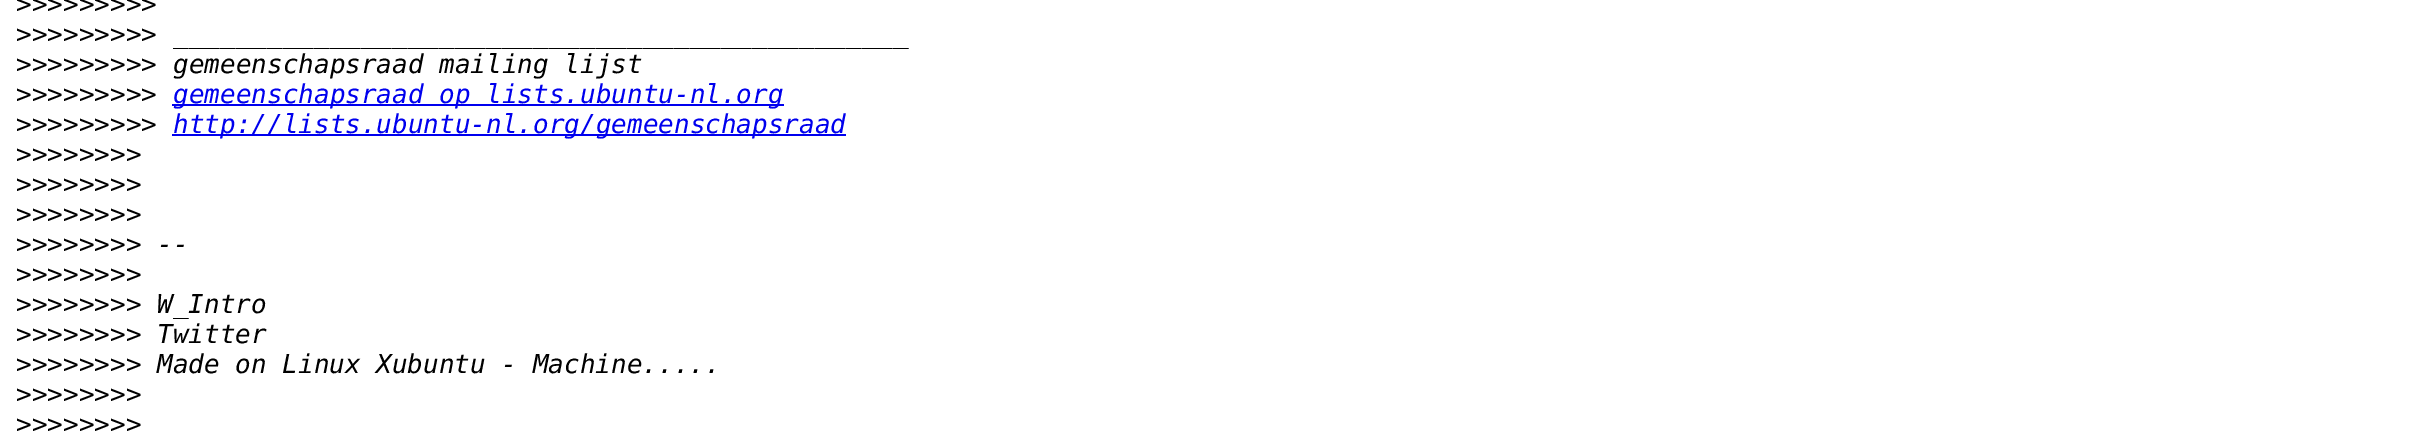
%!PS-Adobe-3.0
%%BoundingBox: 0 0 2411 438
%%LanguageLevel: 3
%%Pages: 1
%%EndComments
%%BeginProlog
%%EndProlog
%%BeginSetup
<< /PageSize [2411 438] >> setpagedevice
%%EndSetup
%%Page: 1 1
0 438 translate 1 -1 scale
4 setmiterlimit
1 setgray
0 0 2411 438 rectfill
0 0 0.933 setrgbcolor
172 104 612 2 rectfill
172 134 674 2 rectfill
/DejaVuSansMono-Regular [26 0 0 -26 0 0] selectfont
0 setgray
16 13 moveto (>>>>>>>>>) show
16 43 moveto (>>>>>>>>>) show
/DejaVuSansMono-Italic [26 0 0 -26 0 0] selectfont
173 43 moveto (_______________________________________________) show
/DejaVuSansMono-Regular [26 0 0 -26 0 0] selectfont
16 73 moveto (>>>>>>>>>) show
/DejaVuSansMono-Italic [26 0 0 -26 0 0] selectfont
173 73 moveto (gemeenschapsraad mailing lijst) show
/DejaVuSansMono-Regular [26 0 0 -26 0 0] selectfont
16 103 moveto (>>>>>>>>>) show
/DejaVuSansMono-Italic [26 0 0 -26 0 0] selectfont
0 0 0.933 setrgbcolor
173 103 moveto (gemeenschapsraad op lists.ubuntu-nl.org) show
/DejaVuSansMono-Regular [26 0 0 -26 0 0] selectfont
0 setgray
16 133 moveto (>>>>>>>>>) show
/DejaVuSansMono-Italic [26 0 0 -26 0 0] selectfont
0 0 0.933 setrgbcolor
173 133 moveto (http://lists.ubuntu-nl.org/gemeenschapsraad) show
/DejaVuSansMono-Regular [26 0 0 -26 0 0] selectfont
0 setgray
16 163 moveto (>>>>>>>>) show
16 193 moveto (>>>>>>>>) show
16 223 moveto (>>>>>>>>) show
16 253 moveto (>>>>>>>>) show
/DejaVuSansMono-Italic [26 0 0 -26 0 0] selectfont
157 253 moveto (--) show
/DejaVuSansMono-Regular [26 0 0 -26 0 0] selectfont
16 283 moveto (>>>>>>>>) show
16 313 moveto (>>>>>>>>) show
/DejaVuSansMono-Italic [26 0 0 -26 0 0] selectfont
157 313 moveto (W_Intro) show
/DejaVuSansMono-Regular [26 0 0 -26 0 0] selectfont
16 343 moveto (>>>>>>>>) show
/DejaVuSansMono-Italic [26 0 0 -26 0 0] selectfont
157 343 moveto (Twitter) show
/DejaVuSansMono-Regular [26 0 0 -26 0 0] selectfont
16 373 moveto (>>>>>>>>) show
/DejaVuSansMono-Italic [26 0 0 -26 0 0] selectfont
157 373 moveto (Made on Linux Xubuntu - Machine.....) show
/DejaVuSansMono-Regular [26 0 0 -26 0 0] selectfont
16 403 moveto (>>>>>>>>) show
16 433 moveto (>>>>>>>>) show
showpage
%%EOF
